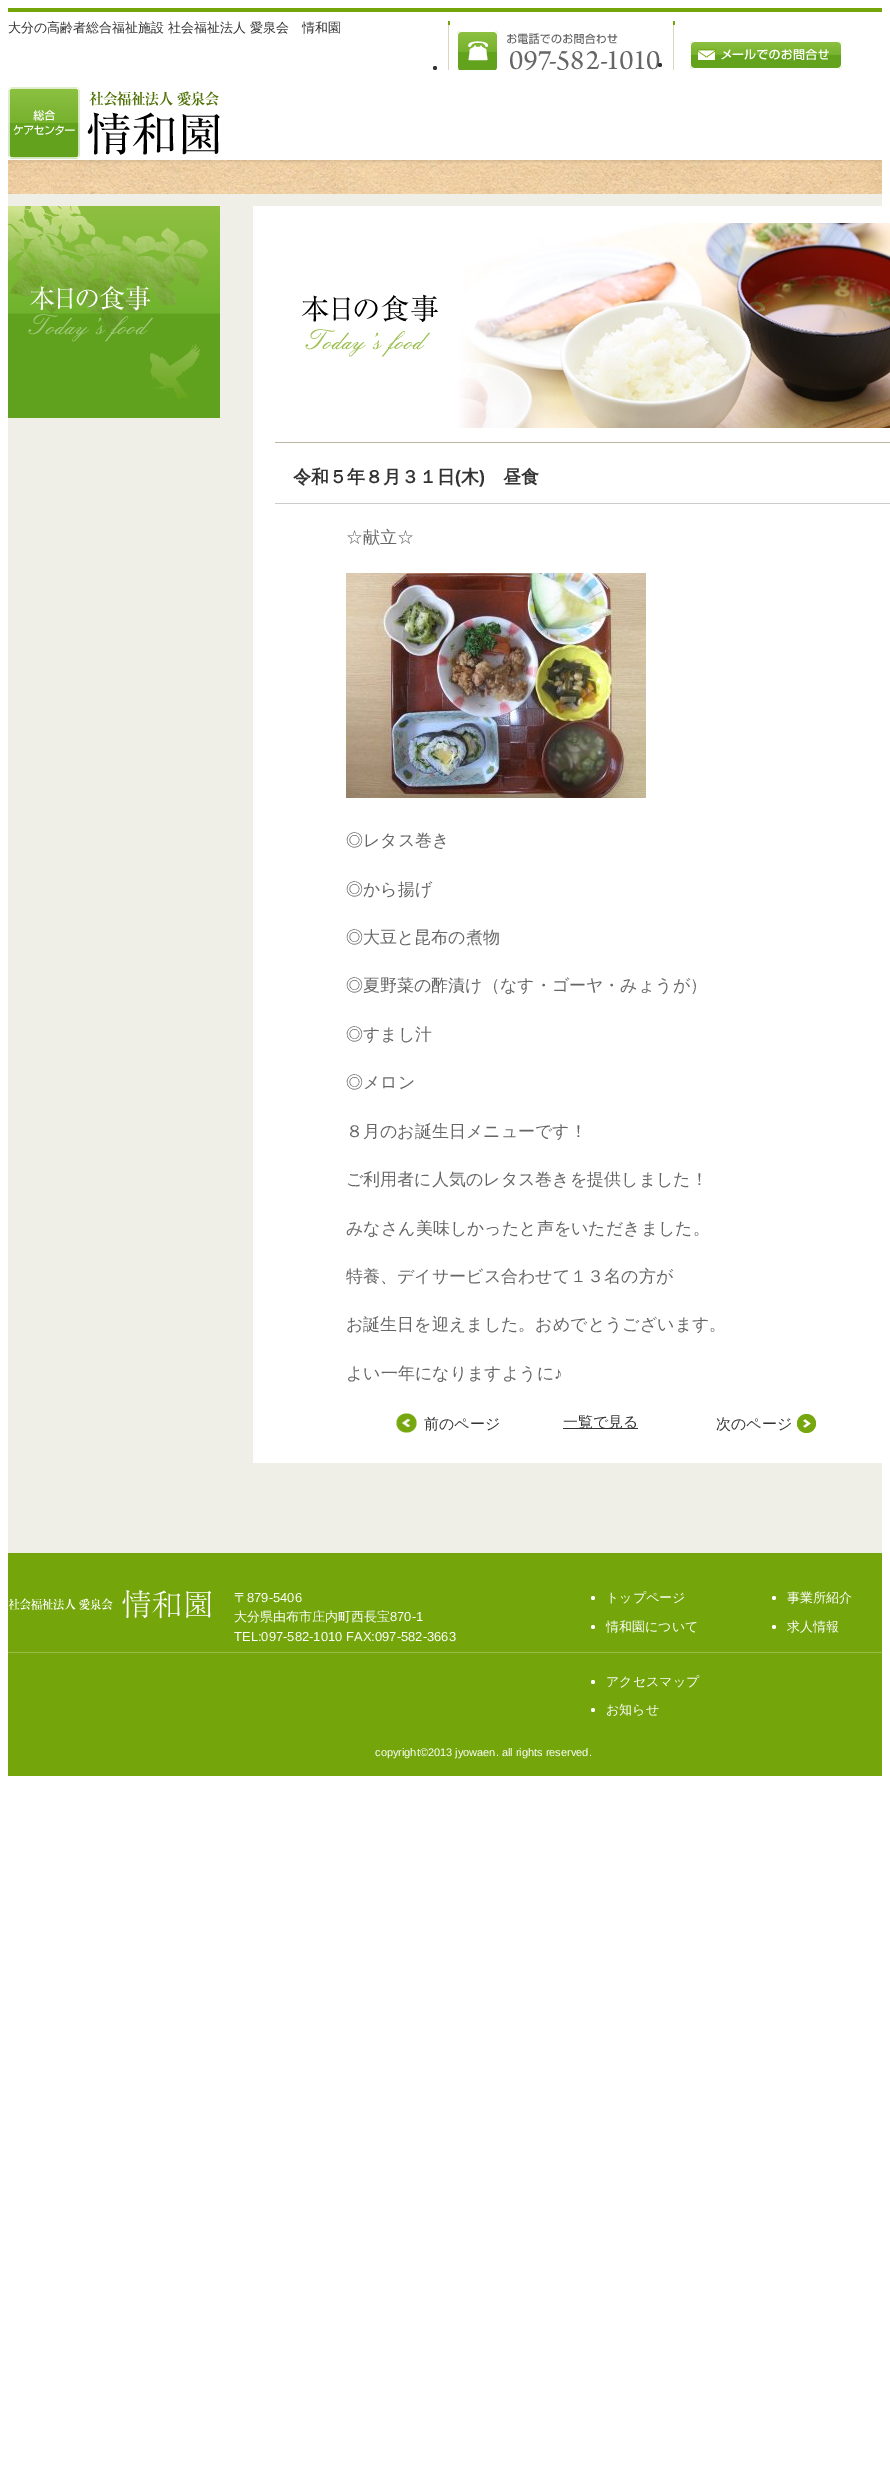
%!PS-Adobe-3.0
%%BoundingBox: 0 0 890 2480
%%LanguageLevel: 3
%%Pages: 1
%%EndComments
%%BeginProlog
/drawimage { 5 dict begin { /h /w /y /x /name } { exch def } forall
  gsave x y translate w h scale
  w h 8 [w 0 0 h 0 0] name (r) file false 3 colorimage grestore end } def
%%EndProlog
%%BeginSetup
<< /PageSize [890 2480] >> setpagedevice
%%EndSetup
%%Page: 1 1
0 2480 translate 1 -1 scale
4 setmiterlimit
1 setgray
0 0 890 2480 rectfill
(images/1.raw) 8 160 874 34 drawimage
(images/2.raw) 8 8 874 155 drawimage
(images/3.raw) 448 21 2 49 drawimage
0.2 setgray
newpath 435 68 2 0 360 arc closepath fill
(images/4.raw) 457 31 203 39 drawimage
(images/3.raw) 673 21 2 49 drawimage
newpath 660 65 2 0 360 arc closepath fill
(images/5.raw) 690 41 152 28 drawimage
(images/6.raw) 8 87 212 72 drawimage
0.937 0.933 0.906 setrgbcolor
8 194 874 1359 rectfill
(images/7.raw) 8 206 212 212 drawimage
1 setgray
253 206 629 1257 rectfill
(images/8.raw) 275 223 615 220 drawimage
0.8 setgray
275 503 615 1 rectfill
(images/9.raw) 346 573 300 225 drawimage
(images/10.raw) 396 1413 21 20 drawimage
0.2 setgray
563 1428 75 1 rectfill
(images/11.raw) 797 1414 19 19 drawimage
0.455 0.651 0.043 setrgbcolor
8 1553 874 223 rectfill
(images/12.raw) 8 1649 874 7 drawimage
(images/13.raw) 8 1590 203 29 drawimage
1 setgray
newpath 593 1598 2 0 360 arc closepath fill
newpath 593 1627 2 0 360 arc closepath fill
newpath 774 1598 2 0 360 arc closepath fill
newpath 774 1627 2 0 360 arc closepath fill
newpath 593 1682 2 0 360 arc closepath fill
newpath 593 1710 2 0 360 arc closepath fill
/WenQuanYiZenHei-Medium [13 0 0 -13 0 0] selectfont
0.2 setgray
8 32 moveto (大分の高齢者総合福祉施設 社会福祉法人 愛泉会　情和園) show
/WenQuanYiZenHei-Bold [18 0 0 -18 0 0] selectfont
293 483 moveto (令和５年８月３１日) show
/LiberationSans-Bold [18 0 0 -18 0 0] selectfont
455 483 moveto (\() show
/WenQuanYiZenHei-Bold [18 0 0 -18 0 0] selectfont
461 483 moveto (木) show
/LiberationSans-Bold [18 0 0 -18 0 0] selectfont
479 483 moveto (\)) show
/WenQuanYiZenHei-Bold [18 0 0 -18 0 0] selectfont
503 483 moveto (昼食) show
/WenQuanYiZenHei-Medium [17 0 0 -17 0 0] selectfont
0.4 setgray
346 543 moveto (☆献立☆) show
346 846 moveto (◎レタス巻き) show
346 895 moveto (◎から揚げ) show
346 943 moveto (◎大豆と昆布の煮物) show
346 991 moveto (◎夏野菜の酢漬け（なす・ゴーヤ・みょうが）) show
346 1040 moveto (◎すまし汁) show
346 1088 moveto (◎メロン) show
346 1137 moveto (８月のお誕生日メニューです！) show
346 1185 moveto (ご利用者に人気のレタス巻きを提供しました！) show
346 1234 moveto (みなさん美味しかったと声をいただきました。) show
346 1282 moveto (特養、デイサービス合わせて１３名の方が) show
346 1330 moveto (お誕生日を迎えました。おめでとうございます。) show
346 1379 moveto (よい一年になりますように) show
/LiberationSans-Regular [17 0 0 -17 0 0] selectfont
554 1379 moveto (♪) show
/WenQuanYiZenHei-Medium [15 0 0 -15 0 0] selectfont
0.2 setgray
424 1429 moveto (前のページ) show
563 1427 moveto (一覧で見る) show
716 1429 moveto (次のページ) show
/WenQuanYiZenHei-Medium [13 0 0 -13 0 0] selectfont
1 setgray
234 1602 moveto (〒) show
/LiberationSans-Regular [13 0 0 -13 0 0] selectfont
247 1602 moveto (879-5406) show
/WenQuanYiZenHei-Medium [13 0 0 -13 0 0] selectfont
234 1621 moveto (大分県由布市庄内町西長宝) show
/LiberationSans-Regular [13 0 0 -13 0 0] selectfont
390 1621 moveto (870-1) show
234 1641 moveto (TEL:097-582-1010 FAX:097-582-3663) show
/WenQuanYiZenHei-Medium [13 0 0 -13 0 0] selectfont
606 1602 moveto (トップページ) show
606 1631 moveto (情和園について) show
787 1602 moveto (事業所紹介) show
787 1631 moveto (求人情報) show
606 1686 moveto (アクセスマップ) show
606 1714 moveto (お知らせ) show
/LiberationSans-Regular [11 0 0 -11 0 0] selectfont
375 1756 moveto (copyright©2013 jyowaen. all rights reserved.) show
showpage
%%EOF
